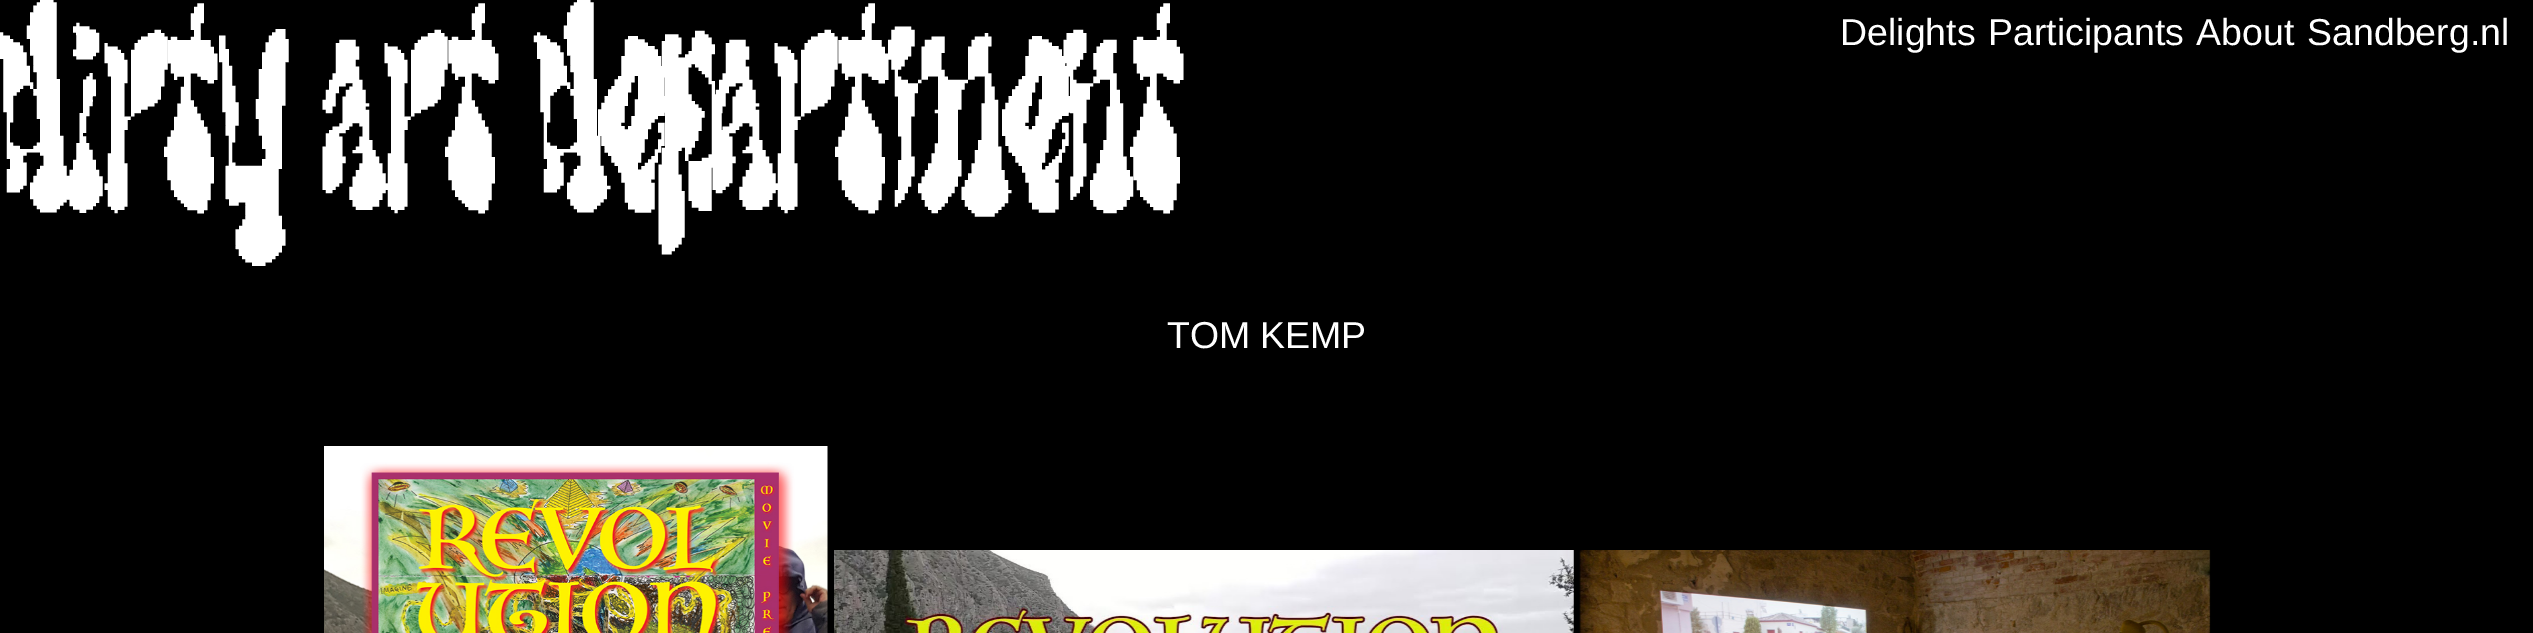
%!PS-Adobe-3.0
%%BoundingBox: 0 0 2533 633
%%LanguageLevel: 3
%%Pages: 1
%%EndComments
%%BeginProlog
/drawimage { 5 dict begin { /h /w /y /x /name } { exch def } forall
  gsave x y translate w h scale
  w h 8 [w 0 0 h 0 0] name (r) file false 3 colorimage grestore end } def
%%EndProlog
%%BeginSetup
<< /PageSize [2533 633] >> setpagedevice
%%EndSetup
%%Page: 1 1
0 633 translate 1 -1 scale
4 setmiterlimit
0 setgray
0 0 2533 633 rectfill
(images/1.raw) 324 446 504 187 drawimage
(images/2.raw) 834 550 740 83 drawimage
(images/3.raw) 1579 550 632 83 drawimage
/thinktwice-Thin [278.5 0 0 -278.5 0 0] selectfont
1 setgray
0 210 moveto (DIRTY ART DEPARTMENT) show
/LiberationSans-Regular [37.5 0 0 -37.5 0 0] selectfont
1840 45 moveto (Delights) show
1988 45 moveto (Participants) show
2196 45 moveto (About) show
2307 45 moveto (Sandberg.nl) show
1167 348 moveto -1 0 32 (TOM KEMP) widthshow
showpage
%%EOF
